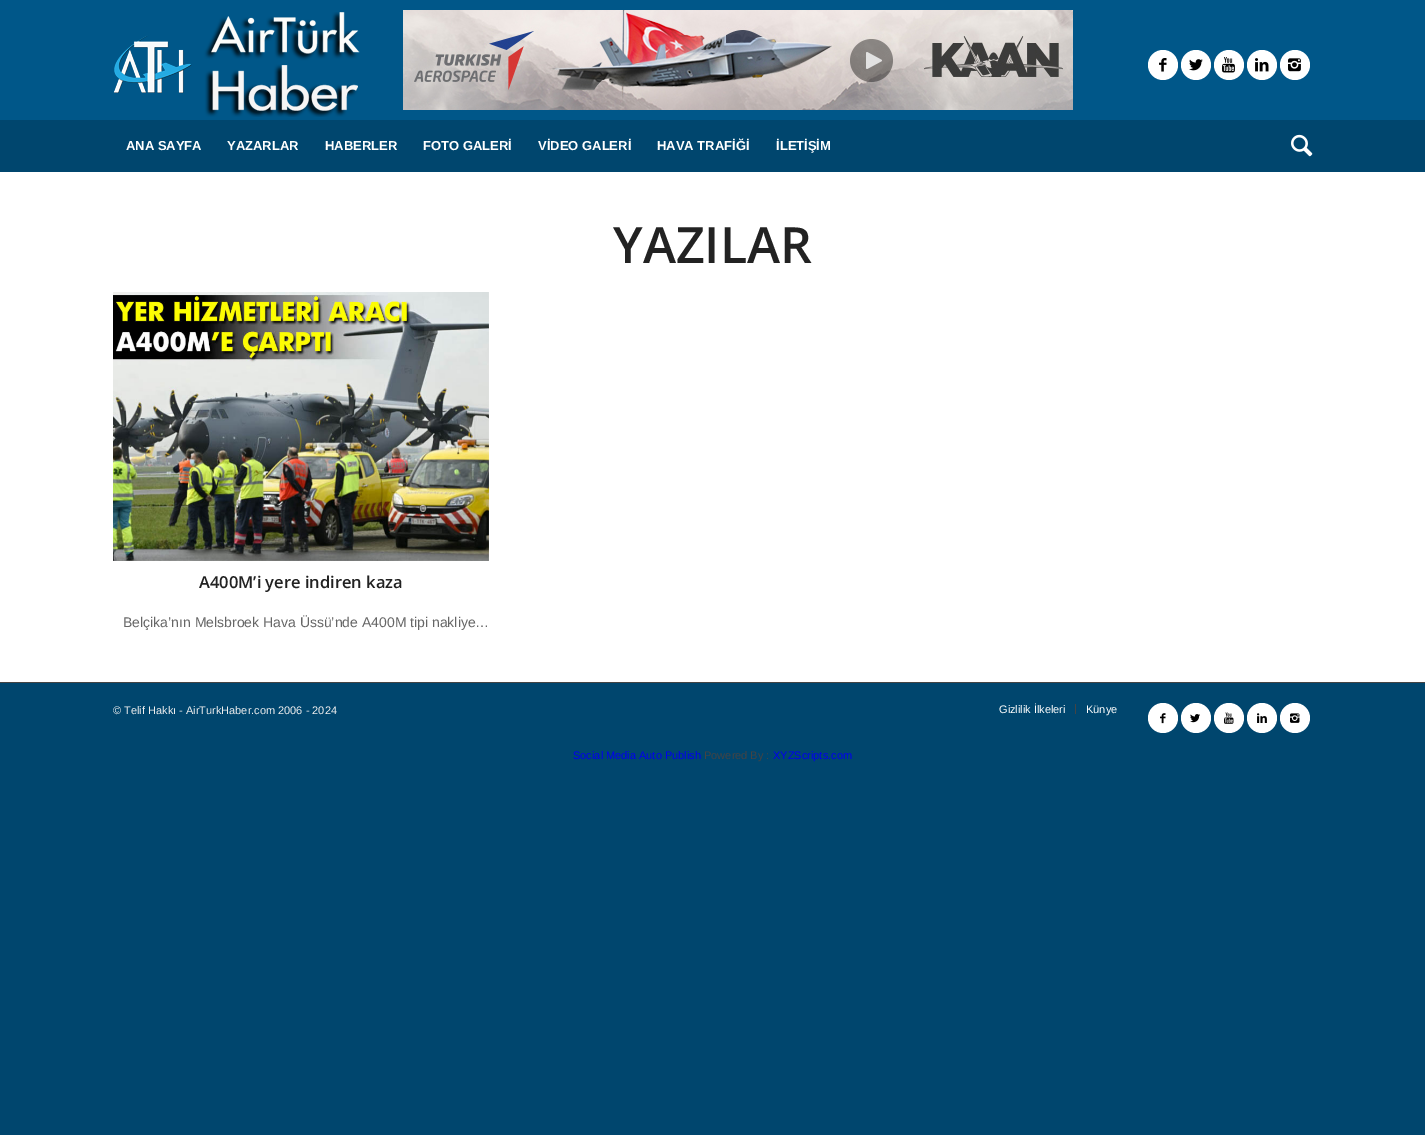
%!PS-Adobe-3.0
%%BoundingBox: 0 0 1425 1135
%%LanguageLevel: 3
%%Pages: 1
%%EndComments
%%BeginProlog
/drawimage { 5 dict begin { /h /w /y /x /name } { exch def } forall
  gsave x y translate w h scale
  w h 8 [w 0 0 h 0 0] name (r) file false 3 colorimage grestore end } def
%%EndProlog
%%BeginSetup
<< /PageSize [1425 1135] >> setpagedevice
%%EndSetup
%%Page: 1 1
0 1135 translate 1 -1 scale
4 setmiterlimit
0 0.275 0.431 setrgbcolor
0 0 1425 1135 rectfill
0 0.341 0.537 setrgbcolor
0 0 1425 120 rectfill
(images/1.raw) 113 12 247 105 drawimage
(images/2.raw) 403 10 670 100 drawimage
1 setgray
newpath 1163 65 15 0 360 arc closepath fill
(images/3.raw) 1159 58 8 14 drawimage
newpath 1196 65 15 0 360 arc closepath fill
(images/4.raw) 1189 59 14 12 drawimage
newpath 1229 65 15 0 360 arc closepath fill
(images/5.raw) 1222 57 13 16 drawimage
newpath 1262 65 15 0 360 arc closepath fill
(images/6.raw) 1255 58 14 14 drawimage
newpath 1295 65 15 0 360 arc closepath fill
(images/7.raw) 1288 58 13 14 drawimage
(images/8.raw) 1291 134 22 23 drawimage
0 172 1425 510 rectfill
(images/9.raw) 113 292 376 269 drawimage
0.267 setgray
0 682 1425 1 rectfill
1075 704 1 10 rectfill
1 setgray
newpath 1163 718 15 0 360 arc closepath fill
(images/10.raw) 1160 713 6 11 drawimage
newpath 1196 718 15 0 360 arc closepath fill
(images/11.raw) 1190 714 10 9 drawimage
newpath 1229 718 15 0 360 arc closepath fill
(images/12.raw) 1224 712 10 12 drawimage
newpath 1262 718 15 0 360 arc closepath fill
(images/13.raw) 1257 713 10 10 drawimage
newpath 1295 718 15 0 360 arc closepath fill
(images/14.raw) 1290 713 10 10 drawimage
/LiberationSans-Bold [13 0 0 -13 0 0] selectfont
126 150 moveto (ANA SAYFA) show
227 150 moveto (YAZARLAR) show
325 150 moveto (HABERLER) show
423 150 moveto (FOTO GALERİ) show
538 150 moveto (VİDEO GALERİ) show
657 150 moveto (HAVA TRAFİĞİ) show
776 150 moveto (İLETİŞİM) show
/OpenSans-SemiBold [50 0 0 -50 0 0] selectfont
0.133 setgray
613 263 moveto (YAZILAR) show
/OpenSans-SemiBold [16.5 0 0 -16.5 0 0] selectfont
199 588 moveto (A400M’i yere indiren kaza) show
/LiberationSans-Regular [14 0 0 -14 0 0] selectfont
0.4 setgray
123 627 moveto (Belçika’nın Melsbroek Hava Üssü’nde A400M tipi nakliye…) show
/LiberationSans-Regular [11 0 0 -11 0 0] selectfont
0.933 setgray
113 714 moveto (© Telif Hakkı - AirTurkHaber.com 2006 - 2024) show
1 setgray
999 713 moveto (Gizlilik İlkeleri) show
1086 713 moveto (Künye) show
0 0 0.933 setrgbcolor
573 759 moveto (Social Media Auto Publish) show
0.267 setgray
704 759 moveto (Powered By :) show
0 0 0.933 setrgbcolor
773 759 moveto (XYZScripts.com) show
showpage
%%EOF
